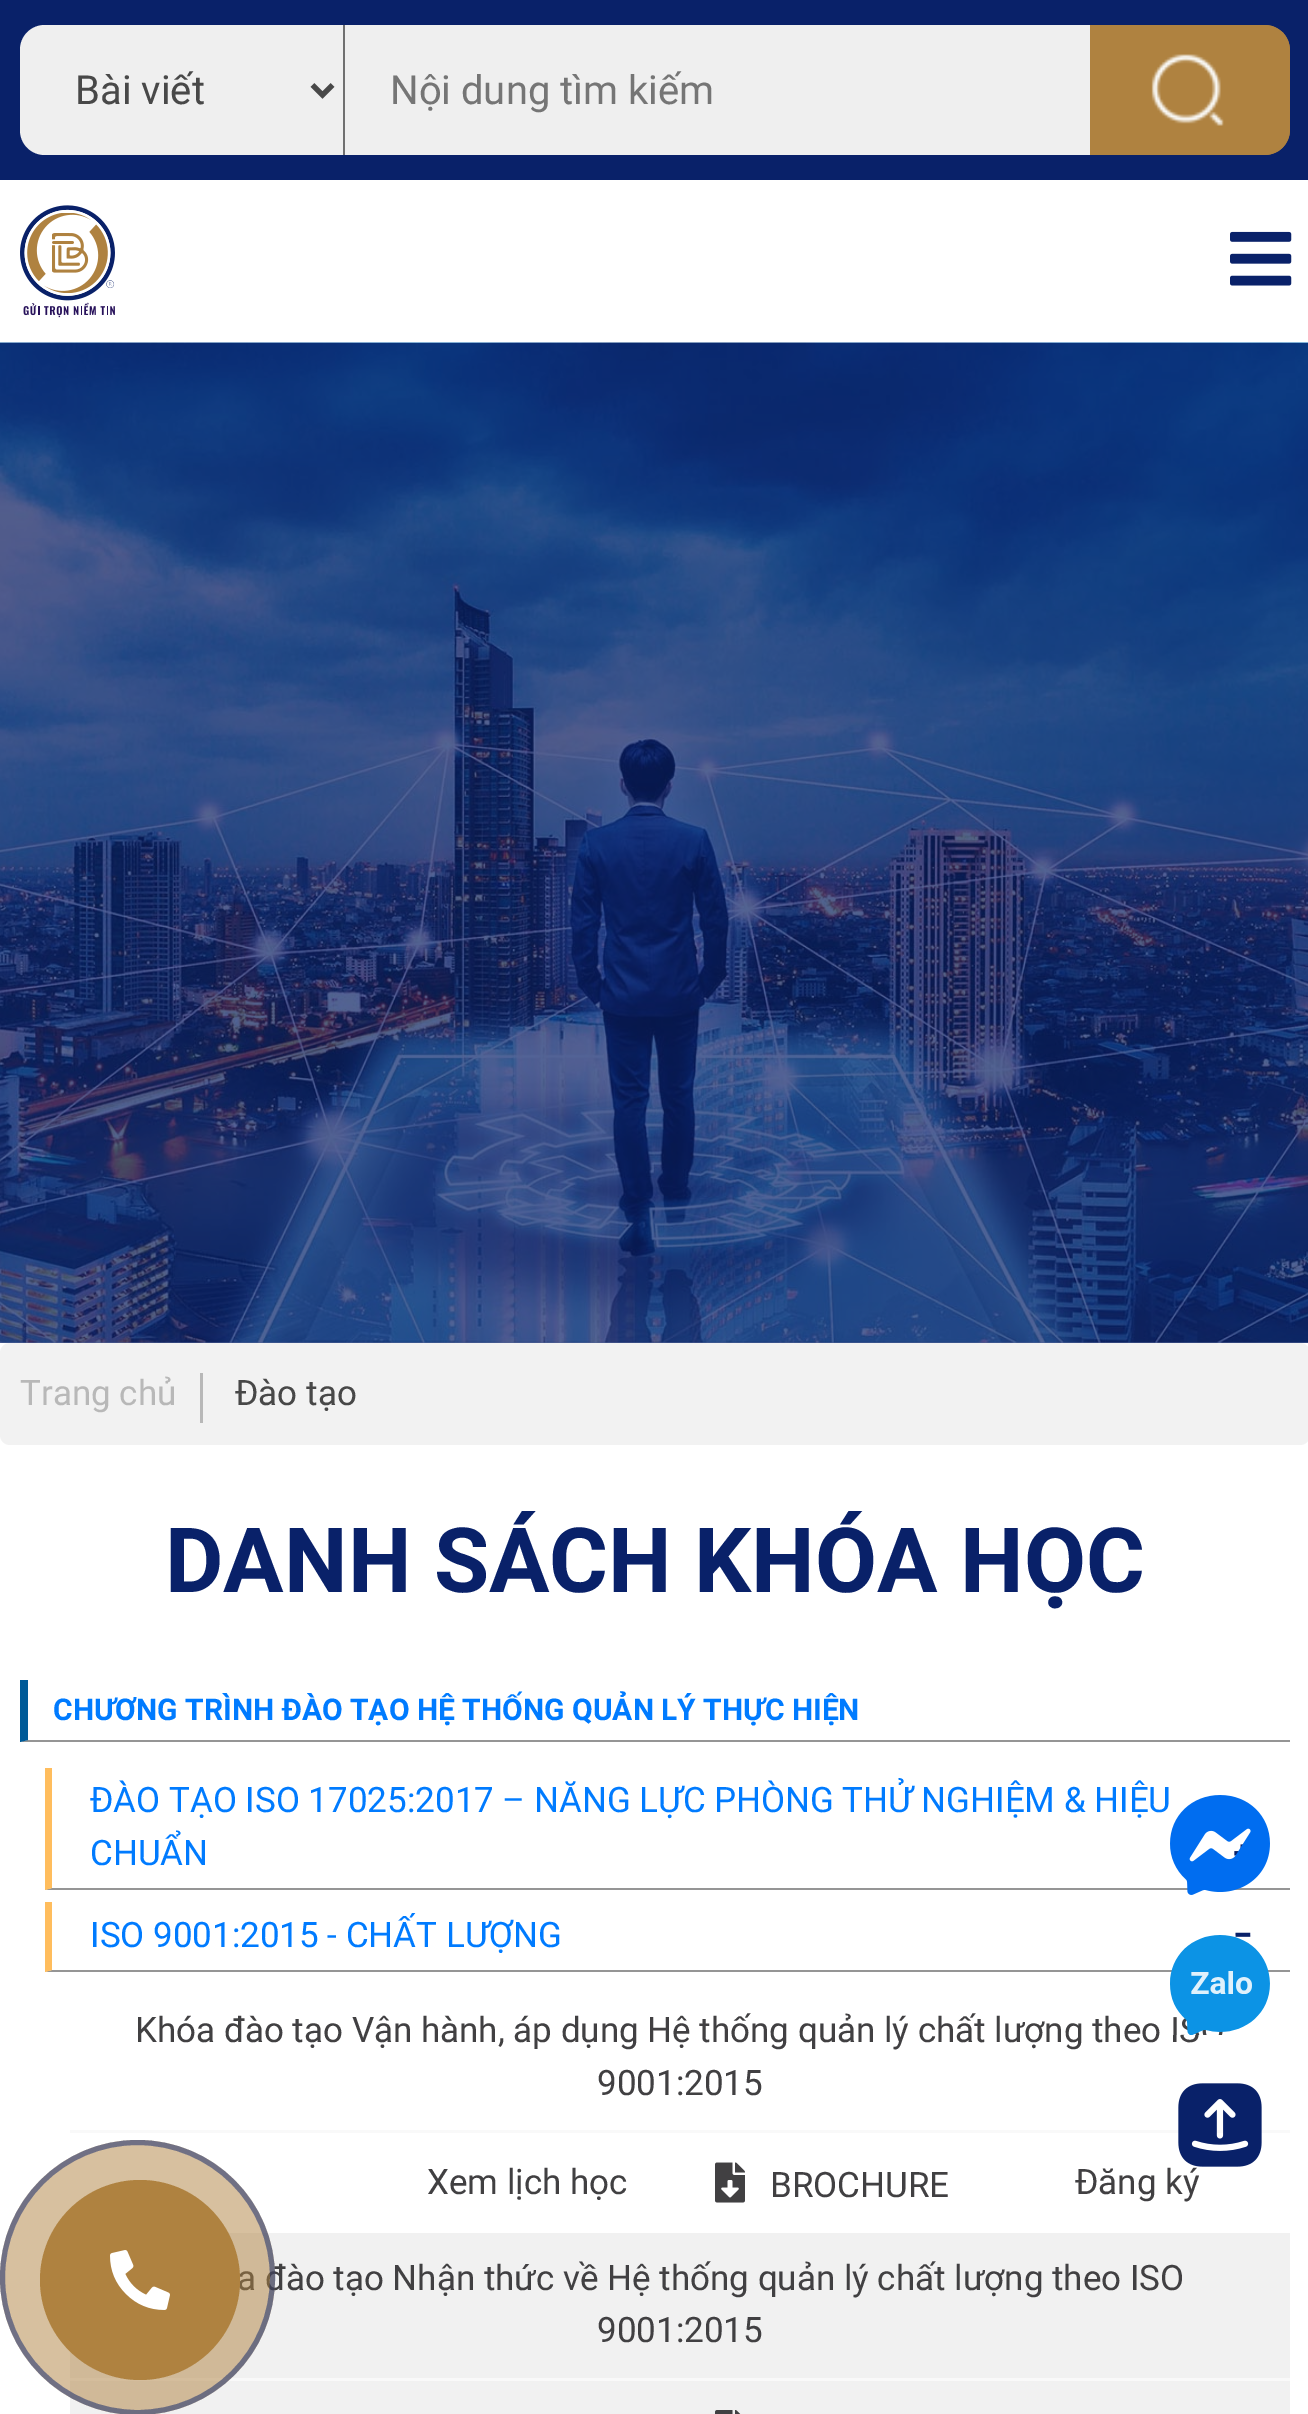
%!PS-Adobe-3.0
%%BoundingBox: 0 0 1308 2414
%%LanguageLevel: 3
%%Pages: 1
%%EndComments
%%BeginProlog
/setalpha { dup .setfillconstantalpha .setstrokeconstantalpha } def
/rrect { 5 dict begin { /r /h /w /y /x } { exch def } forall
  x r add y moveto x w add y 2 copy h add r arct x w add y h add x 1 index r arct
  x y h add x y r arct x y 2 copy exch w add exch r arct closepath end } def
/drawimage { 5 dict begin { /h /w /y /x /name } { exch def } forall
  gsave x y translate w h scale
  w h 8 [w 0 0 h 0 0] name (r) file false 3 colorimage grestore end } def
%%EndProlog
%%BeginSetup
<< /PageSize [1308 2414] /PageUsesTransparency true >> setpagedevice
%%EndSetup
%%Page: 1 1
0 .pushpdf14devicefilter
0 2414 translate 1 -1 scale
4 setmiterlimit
1 setgray
0 0 1308 2414 rectfill
0.325 0.392 0.588 setrgbcolor
0 1342 1308 1 rectfill
0.035 0.129 0.412 setrgbcolor
0 0 1308 180 rectfill
0.937 setgray
newpath 45 25 moveto 345 25 lineto 345 155 lineto 45 155 lineto 31 155 20 144 20 130 curveto 20 50 lineto 20 36 31 25 45 25 curveto closepath fill
0.439 setgray
343 25 2 130 rectfill
0.282 setgray
5 setlinewidth
newpath 312.5 85 moveto 322.5 95 lineto 332.5 85 lineto stroke
0.937 setgray
345 25 745 130 rectfill
0.686 0.51 0.251 setrgbcolor
newpath 1090 25 moveto 1265 25 lineto 1279 25 1290 36 1290 50 curveto 1290 130 lineto 1290 144 1279 155 1265 155 curveto 1090 155 lineto closepath fill
(images/1.raw) 1151 25 139 130 drawimage
(images/2.raw) 20 205 95 113 drawimage
(images/3.raw) 1230 231 62 55 drawimage
(images/4.raw) 0 342 1308 1001 drawimage
0.949 setgray
0 1343 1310 102 10 rrect fill
0.722 setgray
200 1373 3 50 rectfill
0.584 setgray
newpath 1290 1742 moveto 20 1742 lineto 28 1740 lineto 1290 1740 lineto closepath fill
0 0.357 0.6 setrgbcolor
newpath 20 1742 moveto 20 1680 lineto 28 1680 lineto 28 1740 lineto closepath fill
0.584 setgray
newpath 1290 1890 moveto 45 1890 lineto 52 1888 lineto 1290 1888 lineto closepath fill
1 0.741 0.365 setrgbcolor
newpath 45 1890 moveto 45 1768 lineto 52 1768 lineto 52 1888 lineto closepath fill
0.584 setgray
newpath 1290 1972 moveto 45 1972 lineto 52 1970 lineto 1290 1970 lineto closepath fill
1 0.741 0.365 setrgbcolor
newpath 45 1972 moveto 45 1902 lineto 52 1902 lineto 52 1970 lineto closepath fill
0.976 setgray
70 2130 1220 3 rectfill
(images/5.raw) 715 2162 30 41 drawimage
0.945 setgray
70 2233 1220 181 rectfill
0.976 setgray
70 2378 1220 3 rectfill
(images/6.raw) 715 2410 26 4 drawimage
(images/7.raw) 1170 1795 100 100 drawimage
(images/9.raw) 1178 2083 84 84 drawimage
/Roboto-Regular [40 0 0 -40 0 0] selectfont
0.282 setgray
75 104 moveto (Bài viết) show
0.459 setgray
390 104 moveto (Nội dung tìm kiếm) show
/Roboto-Regular [35 0 0 -35 0 0] selectfont
0.722 setgray
20 1405 moveto (Trang chủ) show
0.282 setgray
235 1405 moveto (Đào tạo) show
/Roboto-Bold [90 0 0 -90 0 0] selectfont
0.035 0.129 0.412 setrgbcolor
165 1592 moveto (DANH SÁCH KHÓA HỌC) show
/Roboto-Bold [30 0 0 -30 0 0] selectfont
0 0.482 1 setrgbcolor
53 1720 moveto (CHƯƠNG TRÌNH ĐÀO TẠO HỆ THỐNG QUẢN LÝ THỰC HIỆN) show
/Roboto-Regular [35 0 0 -35 0 0] selectfont
90 1812 moveto (ĐÀO TẠO ISO 17025:2017 – NĂNG LỰC PHÒNG THỬ NGHIỆM & HIỆU) show
90 1865 moveto (CHUẨN) show
90 1947 moveto (ISO 9001:2015 - CHẤT LƯỢNG) show
/Roboto-Bold [35 0 0 -35 0 0] selectfont
0.035 0.129 0.412 setrgbcolor
1233 1947 moveto (−) show
/Roboto-Regular [35 0 0 -35 0 0] selectfont
0.255 0.251 0.259 setrgbcolor
135 2042 moveto (Khóa đào tạo Vận hành, áp dụng Hệ thống quản lý chất lượng theo IS) show
597 2095 moveto (9001:2015) show
427 2194 moveto (Xem lịch học) show
770 2197 moveto (BROCHURE) show
1075 2194 moveto (Đăng ký) show
237 2290 moveto (a đào tạo Nhận thức về Hệ thống quản lý chất lượng theo ISO) show
597 2342 moveto (9001:2015) show
(images/8.raw) 1170 1935 100 100 drawimage
0.5 setalpha
0.686 0.51 0.251 setrgbcolor
newpath 137.5 2277.5 137.5 0 360 arc closepath fill
0.035 0.129 0.412 setrgbcolor
newpath 137.5 2277.5 135 0 360 arc closepath stroke
1 setalpha
0.686 0.51 0.251 setrgbcolor
newpath 140 2280 100 0 360 arc closepath fill
(images/10.raw) 110 2250 60 60 drawimage
.poppdf14devicefilter showpage
%%EOF
